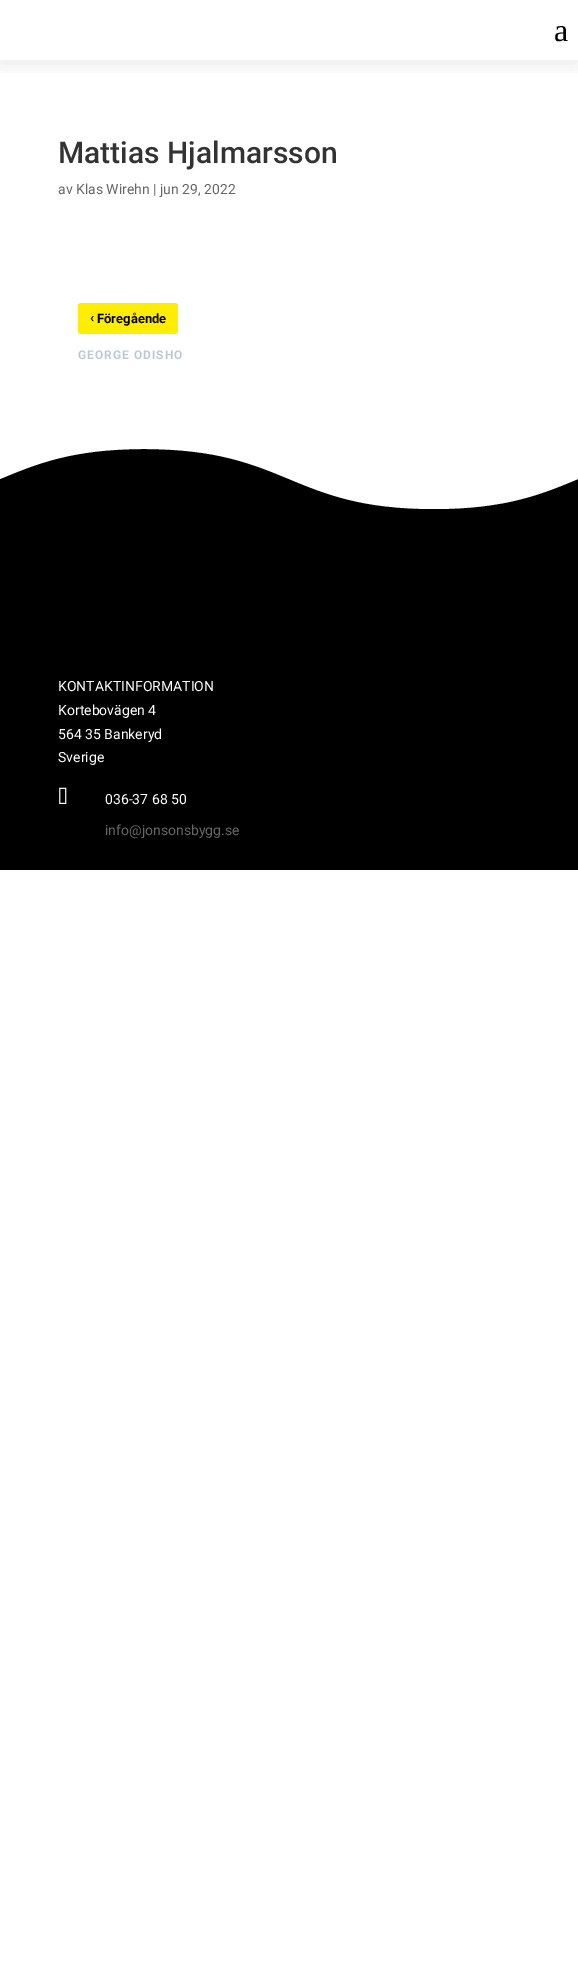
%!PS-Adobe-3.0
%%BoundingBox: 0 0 578 1976
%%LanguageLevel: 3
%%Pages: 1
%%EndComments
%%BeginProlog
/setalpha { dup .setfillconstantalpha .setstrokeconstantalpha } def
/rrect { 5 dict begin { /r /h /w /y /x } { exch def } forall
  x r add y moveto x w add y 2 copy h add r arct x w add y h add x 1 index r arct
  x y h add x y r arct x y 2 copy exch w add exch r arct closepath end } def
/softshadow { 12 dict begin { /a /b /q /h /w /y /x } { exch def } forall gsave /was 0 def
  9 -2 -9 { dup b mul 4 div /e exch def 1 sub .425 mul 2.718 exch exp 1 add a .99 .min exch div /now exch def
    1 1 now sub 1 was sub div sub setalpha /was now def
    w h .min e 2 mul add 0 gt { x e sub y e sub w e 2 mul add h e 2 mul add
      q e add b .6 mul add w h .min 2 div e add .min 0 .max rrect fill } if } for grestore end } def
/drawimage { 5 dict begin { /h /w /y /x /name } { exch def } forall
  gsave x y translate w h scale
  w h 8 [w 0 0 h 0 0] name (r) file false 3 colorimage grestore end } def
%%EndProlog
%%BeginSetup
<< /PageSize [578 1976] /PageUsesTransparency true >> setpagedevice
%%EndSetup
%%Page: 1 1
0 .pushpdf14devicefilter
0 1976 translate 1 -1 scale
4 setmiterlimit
1 setgray
0 0 578 1976 rectfill
gsave
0 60 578 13 rectclip
0 setgray
0 2 578 60 0 12.5 0.1 softshadow
grestore
1 0.929 0 setrgbcolor
78 303 100 31 3 rrect fill
0 setgray
0 449 578 421 rectfill
1 setgray
newpath 144 449 moveto 72 449 36 464 0 479 curveto 0 429 lineto 578 429 lineto 578 479 lineto 542 494 506 509 434 509 curveto 289 509 289 449 144 449 curveto closepath fill
(images/1.raw) 59 787 8 17 drawimage
/LiberationSerif-Regular [32 0 0 -32 0 0] selectfont
0 setgray
554 41 moveto (a) show
/Roboto-Medium [30 0 0 -30 0 0] selectfont
0.2 setgray
58 163 moveto (Mattias Hjalmarsson) show
/Roboto-Regular [14 0 0 -14 0 0] selectfont
0.4 setgray
58 194 moveto (av Klas Wirehn | jun 29, 2022) show
/Roboto-Bold [13 0 0 -13 0 0] selectfont
0 setgray
90 322 moveto (‹) show
97 323 moveto (Föregående) show
/Roboto-Bold [12 0 0 -12 0 0] selectfont
0.741 0.784 0.835 setrgbcolor
78 359 moveto 1 0 (GEORGE ODISHO) ashow
/Roboto-Regular [14 0 0 -14 0 0] selectfont
1 setgray
58 691 moveto (KONTAKTINFORMATION) show
58 715 moveto (Kortebovägen 4) show
58 739 moveto (564 35 Bankeryd) show
58 762 moveto (Sverige) show
105 804 moveto (036-37 68 50) show
0.4 setgray
105 835 moveto (info@jonsonsbygg.se) show
.poppdf14devicefilter showpage
%%EOF
